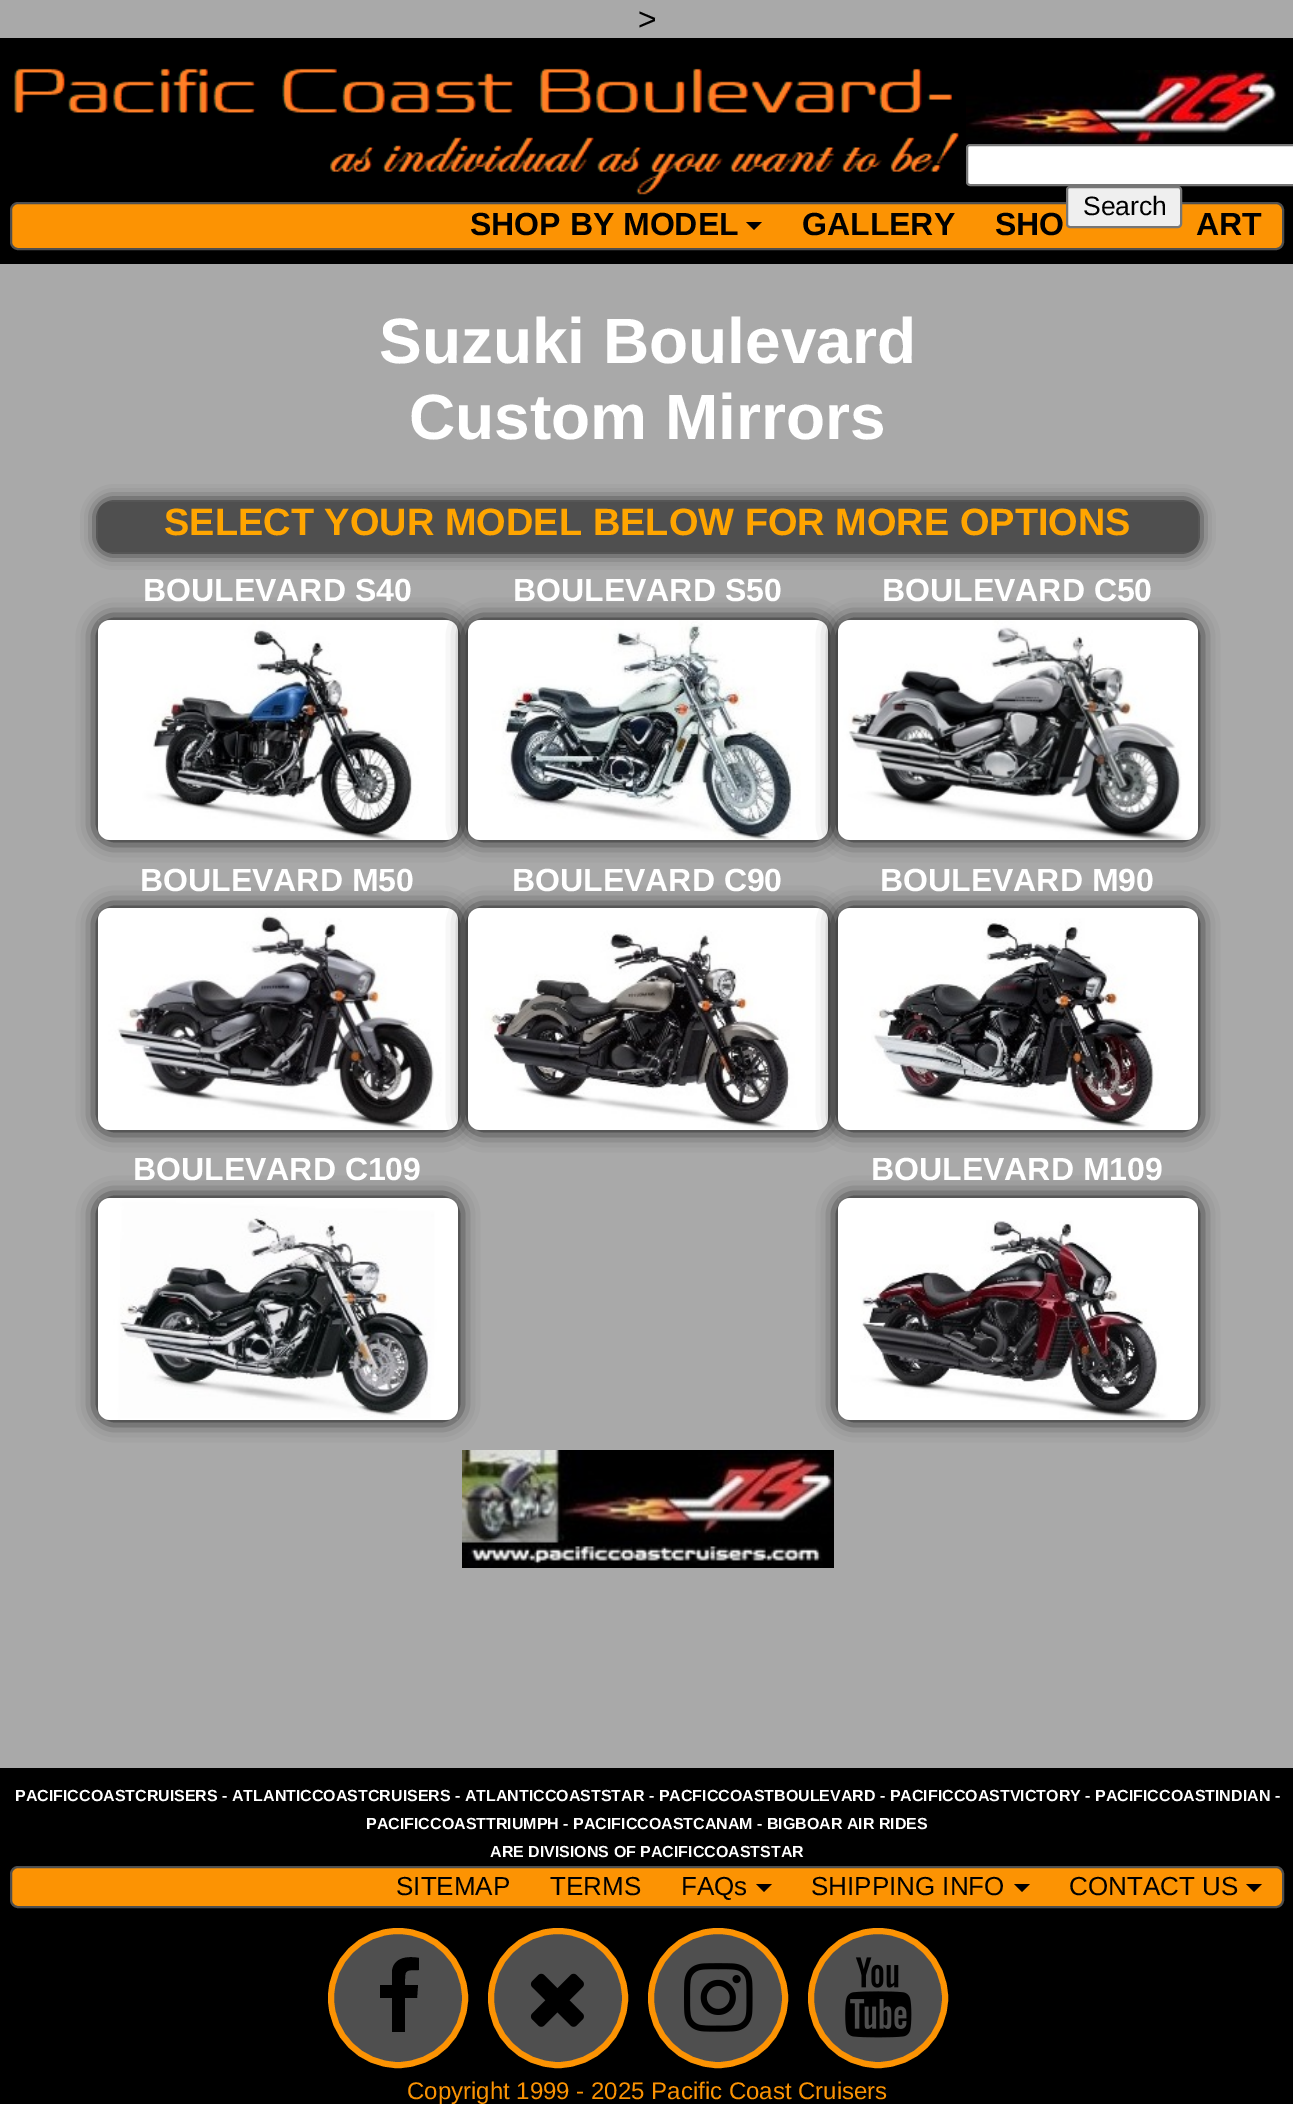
%!PS-Adobe-3.0
%%BoundingBox: 0 0 1293 2104
%%LanguageLevel: 3
%%Pages: 1
%%EndComments
%%BeginProlog
/setalpha { dup .setfillconstantalpha .setstrokeconstantalpha } def
/rrect { 5 dict begin { /r /h /w /y /x } { exch def } forall
  x r add y moveto x w add y 2 copy h add r arct x w add y h add x 1 index r arct
  x y h add x y r arct x y 2 copy exch w add exch r arct closepath end } def
/softshadow { 12 dict begin { /a /b /q /h /w /y /x } { exch def } forall gsave /was 0 def
  9 -2 -9 { dup b mul 4 div /e exch def 1 sub .425 mul 2.718 exch exp 1 add a .99 .min exch div /now exch def
    1 1 now sub 1 was sub div sub setalpha /was now def
    w h .min e 2 mul add 0 gt { x e sub y e sub w e 2 mul add h e 2 mul add
      q e add b .6 mul add w h .min 2 div e add .min 0 .max rrect fill } if } for grestore end } def
/drawimage { 5 dict begin { /h /w /y /x /name } { exch def } forall
  gsave x y translate w h scale
  w h 8 [w 0 0 h 0 0] name (r) file false 3 colorimage grestore end } def
%%EndProlog
%%BeginSetup
<< /PageSize [1293 2104] /PageUsesTransparency true >> setpagedevice
%%EndSetup
%%Page: 1 1
0 .pushpdf14devicefilter
0 2104 translate 1 -1 scale
4 setmiterlimit
0.663 setgray
0 0 1293 2104 rectfill
0 setgray
0 38 1293 226 rectfill
(images/1.raw) 14 68 945 127 drawimage
(images/2.raw) 966 70 312 74 drawimage
1 setgray
967 145 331 40 3 rrect gsave fill grestore
0.463 setgray
2 setlinewidth
stroke
0.988 0.576 0.012 setrgbcolor
11 203 1272 46 7 rrect gsave fill grestore
0.31 setgray
stroke
0.937 setgray
1067 187 114 40 3 rrect gsave fill grestore
0.463 setgray
stroke
0 setgray
newpath 746 222 moveto 762 222 lineto 754 230 lineto closepath fill
98 502 1100 50 12 8 1 softshadow
0.31 setgray
98 502 1100 50 12 rrect fill
0 setgray
98 620 360 220 12 10 1 softshadow
(images/3.raw) 98 620 360 220 drawimage
468 620 360 220 12 10 1 softshadow
(images/4.raw) 468 620 360 220 drawimage
838 620 360 220 12 10 1 softshadow
(images/5.raw) 838 620 360 220 drawimage
98 908 360 222 12 10 1 softshadow
(images/6.raw) 98 908 360 222 drawimage
468 908 360 222 12 10 1 softshadow
(images/7.raw) 468 908 360 222 drawimage
838 908 360 222 12 10 1 softshadow
(images/8.raw) 838 908 360 222 drawimage
98 1198 360 222 12 10 1 softshadow
(images/9.raw) 98 1198 360 222 drawimage
838 1198 360 222 12 10 1 softshadow
(images/10.raw) 838 1198 360 222 drawimage
(images/11.raw) 462 1450 372 118 drawimage
0 1768 1293 336 rectfill
0.988 0.576 0.012 setrgbcolor
11 1867 1272 40 7 rrect gsave fill grestore
0.31 setgray
stroke
0 setgray
newpath 756 1884 moveto 772 1884 lineto 764 1892 lineto closepath fill
newpath 1014 1884 moveto 1030 1884 lineto 1022 1892 lineto closepath fill
newpath 1246 1884 moveto 1262 1884 lineto 1254 1892 lineto closepath fill
0.31 setgray
newpath 398 1998 67 0 360 arc closepath gsave fill grestore
0.988 0.576 0.012 setrgbcolor
6 setlinewidth
stroke
0 setgray
newpath 419 1958 moveto 419 1970 lineto 404 1970 405 1970 405 1985 curveto 418 1985 lineto 417 1998 lineto 405 1998 lineto 405 2032 lineto 392 2032 lineto 392 1998 lineto 380 1998 lineto 380 1985 lineto 392 1985 lineto 392 1971 lineto 394 1957 408 1956 419 1958 curveto closepath fill
0.31 setgray
newpath 558 1998 67 0 360 arc closepath gsave fill grestore
0.988 0.576 0.012 setrgbcolor
stroke
(images/12.raw) 530 1973 54 54 drawimage
0.31 setgray
newpath 718 1998 67 0 360 arc closepath gsave fill grestore
0.988 0.576 0.012 setrgbcolor
stroke
(images/13.raw) 684 1963 69 69 drawimage
0.31 setgray
newpath 878 1998 67 0 360 arc closepath gsave fill grestore
0.988 0.576 0.012 setrgbcolor
stroke
(images/14.raw) 845 1957 67 81 drawimage
/LiberationSans-Regular [32 0 0 -32 0 0] selectfont
0 setgray
638 30 moveto (>) show
/LiberationSans-Regular [26.5 0 0 -26.5 0 0] selectfont
1083 215 moveto (Search) show
/LiberationSans-Bold [32 0 0 -32 0 0] selectfont
470 235 moveto (SHOP BY MODEL) show
802 235 moveto (GALLERY) show
995 235 moveto (SHO) show
1196 235 moveto (ART) show
/LiberationSans-Bold [64 0 0 -64 0 0] selectfont
1 setgray
379 363 moveto (Suzuki Boulevard) show
409 439 moveto (Custom Mirrors) show
/LiberationSans-Bold [38 0 0 -38 0 0] selectfont
1 0.647 0 setrgbcolor
164 535 moveto (SELECT YOUR MODEL BELOW FOR MORE OPTIONS) show
/LiberationSans-Bold [32 0 0 -32 0 0] selectfont
1 setgray
143 601 moveto (BOULEVARD S40) show
513 601 moveto (BOULEVARD S50) show
882 601 moveto (BOULEVARD C50) show
140 891 moveto (BOULEVARD M50) show
512 891 moveto (BOULEVARD C90) show
880 891 moveto (BOULEVARD M90) show
133 1180 moveto (BOULEVARD C109) show
871 1180 moveto (BOULEVARD M109) show
/LiberationSans-Bold [16 0 0 -16 0 0] selectfont
15 1801 moveto (PACIFICCOASTCRUISERS - ATLANTICCOASTCRUISERS - ATLANTICCOASTSTAR - PACFICCOASTBOULEVARD - PACIFICCOASTVICTORY - PACIFICCOASTINDIAN -) show
366 1829 moveto (PACIFICCOASTTRIUMPH - PACIFICCOASTCANAM - BIGBOAR AIR RIDES) show
490 1857 moveto (ARE DIVISIONS OF PACIFICCOASTSTAR) show
/LiberationSans-Regular [26 0 0 -26 0 0] selectfont
0 setgray
396 1895 moveto (SITEMAP) show
550 1895 moveto (TERMS) show
681 1895 moveto (FAQs) show
811 1895 moveto (SHIPPING INFO) show
1069 1895 moveto (CONTACT US) show
/LiberationSans-Regular [24 0 0 -24 0 0] selectfont
0.988 0.576 0.012 setrgbcolor
407 2099 moveto (Copyright 1999 - 2025 Pacific Coast Cruisers) show
.poppdf14devicefilter showpage
%%EOF
